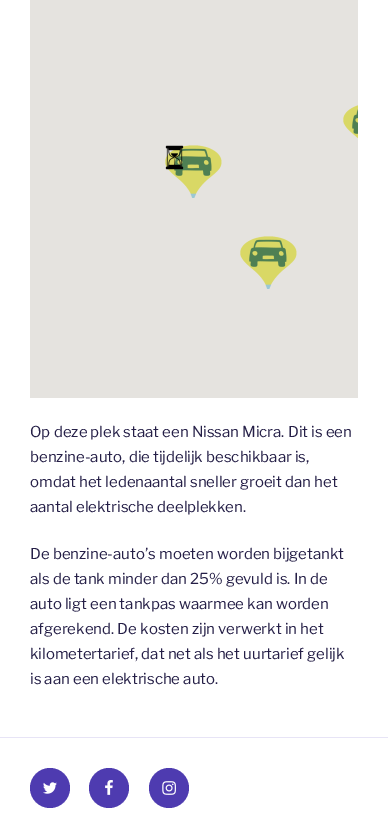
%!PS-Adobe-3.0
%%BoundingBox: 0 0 388 837
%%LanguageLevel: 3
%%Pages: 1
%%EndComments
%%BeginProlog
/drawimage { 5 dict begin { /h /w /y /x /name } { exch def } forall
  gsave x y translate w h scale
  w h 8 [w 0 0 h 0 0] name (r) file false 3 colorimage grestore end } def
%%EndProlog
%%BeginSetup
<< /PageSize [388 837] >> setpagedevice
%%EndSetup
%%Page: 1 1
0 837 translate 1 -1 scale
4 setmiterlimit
1 setgray
0 0 388 837 rectfill
0.898 0.89 0.875 setrgbcolor
30 0 328 398 rectfill
(images/1.raw) 343 105 15 34 drawimage
(images/2.raw) 165 145 57 53 drawimage
(images/3.raw) 240 236 57 53 drawimage
0.906 0.894 0.965 setrgbcolor
0 737 388 1 rectfill
0.306 0.231 0.69 setrgbcolor
newpath 50 788 20 0 360 arc closepath fill
(images/4.raw) 43 782 14 12 drawimage
newpath 109 788 20 0 360 arc closepath fill
(images/5.raw) 105 780 8 15 drawimage
newpath 169 788 20 0 360 arc closepath fill
(images/6.raw) 162 781 14 14 drawimage
/LibreFranklin-Thin [15 0 0 -15 0 0] selectfont
0.145 0.122 0.278 setrgbcolor
30 437 moveto (Op deze plek staat een Nissan Micra. Dit is een) show
30 462 moveto (benzine-auto, die tijdelijk beschikbaar is,) show
30 487 moveto (omdat het ledenaantal sneller groeit dan het) show
30 512 moveto (aantal elektrische deelplekken.) show
30 559 moveto (De benzine-auto’s moeten worden bijgetankt) show
30 584 moveto (als de tank minder dan 25% gevuld is. In de) show
30 609 moveto (auto ligt een tankpas waarmee kan worden) show
30 634 moveto (afgerekend. De kosten zijn verwerkt in het) show
30 659 moveto (kilometertarief, dat net als het uurtarief gelijk) show
30 684 moveto (is aan een elektrische auto.) show
showpage
%%EOF
